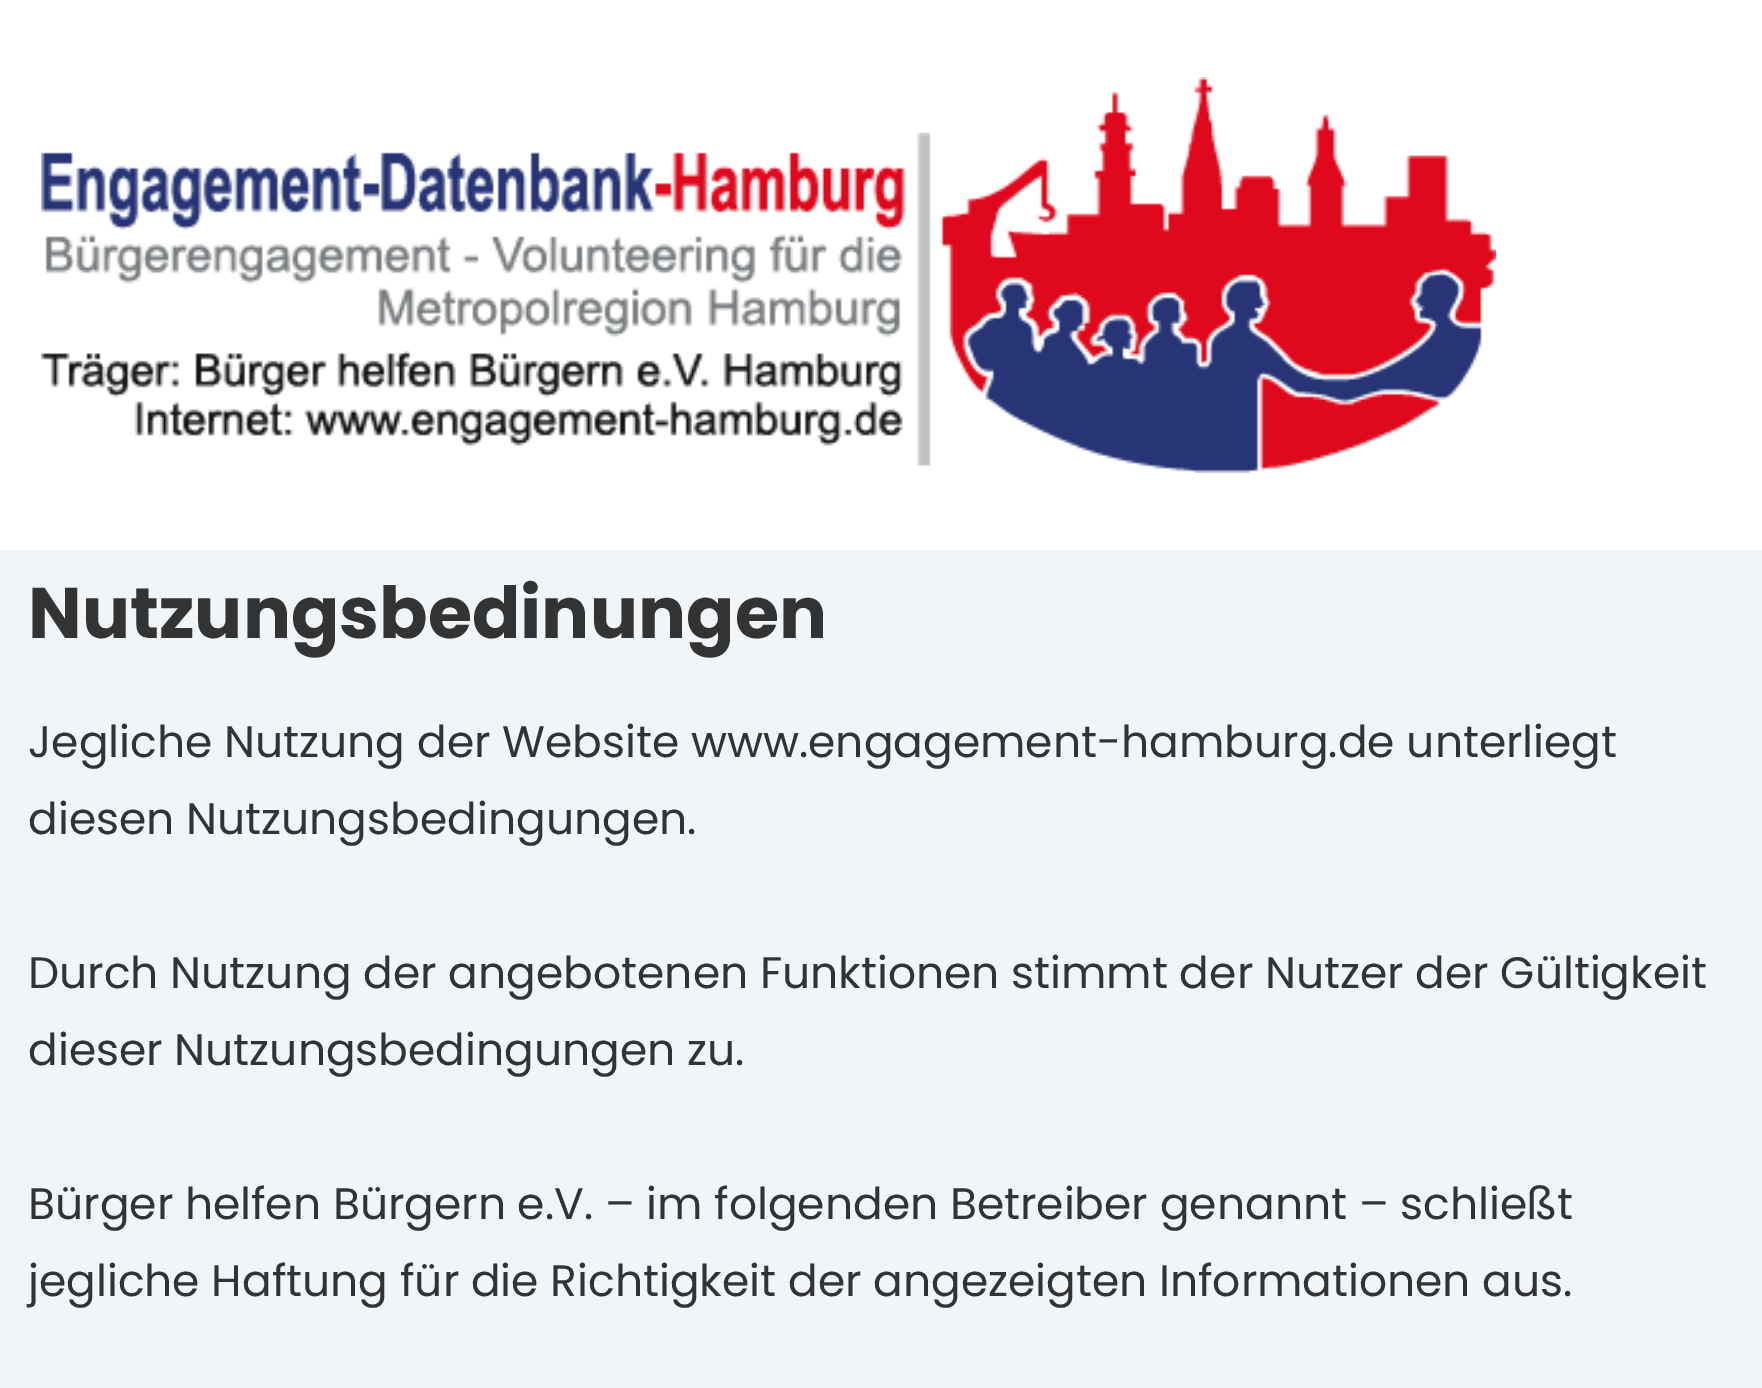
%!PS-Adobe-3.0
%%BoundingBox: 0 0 1762 1388
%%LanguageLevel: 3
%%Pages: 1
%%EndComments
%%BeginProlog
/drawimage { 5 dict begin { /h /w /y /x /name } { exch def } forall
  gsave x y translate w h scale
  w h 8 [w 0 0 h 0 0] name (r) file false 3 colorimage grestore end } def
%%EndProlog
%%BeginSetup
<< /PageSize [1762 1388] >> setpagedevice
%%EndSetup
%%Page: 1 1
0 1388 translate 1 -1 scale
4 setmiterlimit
0.941 0.961 0.98 setrgbcolor
0 0 1762 1388 rectfill
1 setgray
0 0 1762 550 rectfill
(images/1.raw) 41 77 1455 396 drawimage
/Poppins-Bold [71.5 0 0 -71.5 0 0] selectfont
0.2 setgray
28 638 moveto (Nutzungsbedinungen) show
/Poppins-Regular [44 0 0 -44 0 0] selectfont
28 757 moveto (Jegliche Nutzung der Website www.engagement-hamburg.de unterliegt) show
28 834 moveto (diesen Nutzungsbedingungen.) show
28 988 moveto (Durch Nutzung der angebotenen Funktionen stimmt der Nutzer der Gültigkeit) show
28 1065 moveto (dieser Nutzungsbedingungen zu.) show
28 1219 moveto (Bürger helfen Bürgern e.V. – im folgenden Betreiber genannt – schließt) show
28 1296 moveto (jegliche Haftung für die Richtigkeit der angezeigten Informationen aus.) show
showpage
%%EOF
